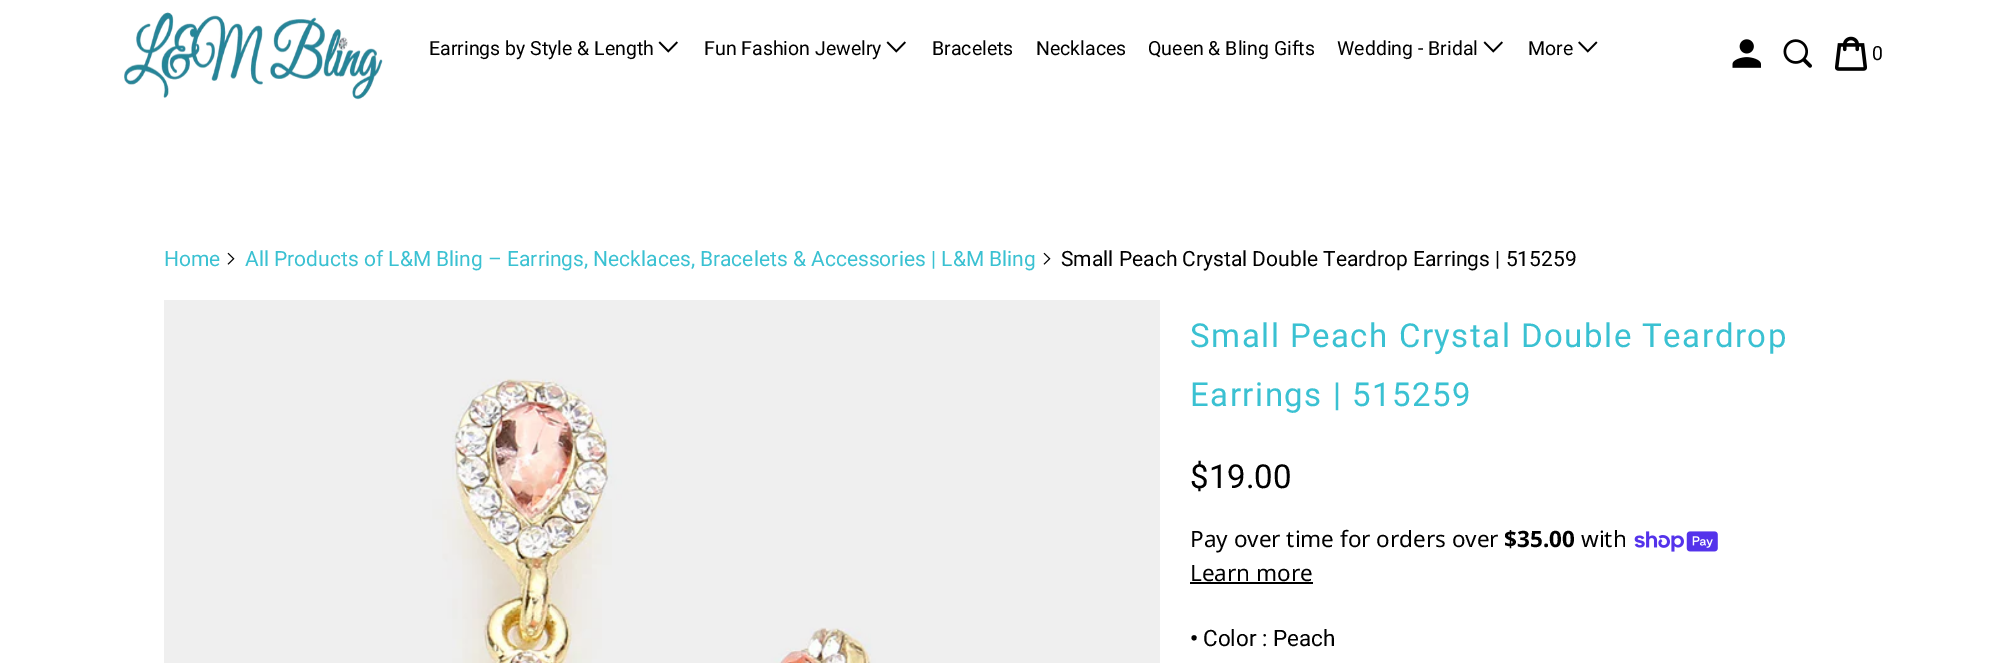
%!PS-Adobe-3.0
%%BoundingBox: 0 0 2006 663
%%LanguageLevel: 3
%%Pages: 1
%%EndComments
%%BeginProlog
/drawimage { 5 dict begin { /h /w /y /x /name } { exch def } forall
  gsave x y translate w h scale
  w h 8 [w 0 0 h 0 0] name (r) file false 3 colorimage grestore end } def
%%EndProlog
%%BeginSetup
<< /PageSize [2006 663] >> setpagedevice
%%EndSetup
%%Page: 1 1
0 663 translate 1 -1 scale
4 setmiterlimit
1 setgray
0 0 2006 663 rectfill
(images/1.raw) 124 12 259 88 drawimage
(images/2.raw) 658 41 20 12 drawimage
(images/2.raw) 886 41 20 12 drawimage
(images/2.raw) 1483 41 20 12 drawimage
(images/3.raw) 1578 41 20 12 drawimage
(images/4.raw) 1732 39 29 29 drawimage
(images/5.raw) 1783 39 29 29 drawimage
(images/6.raw) 1835 36 32 35 drawimage
(images/7.raw) 227 252 8 13 drawimage
(images/7.raw) 1043 252 8 13 drawimage
(images/8.raw) 164 300 996 363 drawimage
(images/9.raw) 1634 531 84 21 drawimage
0 setgray
1190 582 123 2 rectfill
/Roboto-Regular [19.5 0 0 -19.5 0 0] selectfont
429 55 moveto (Earrings by Style & Length) show
704 55 moveto (Fun Fashion Jewelry) show
932 55 moveto (Bracelets) show
1036 55 moveto (Necklaces) show
1148 55 moveto (Queen & Bling Gifts) show
1337 55 moveto (Wedding - Bridal) show
1528 55 moveto (More) show
1872 60 moveto (0) show
/Roboto-Regular [21 0 0 -21 0 0] selectfont
0.227 0.757 0.824 setrgbcolor
164 266 moveto (Home) show
245 266 moveto (All Products of L&M Bling – Earrings, Necklaces, Bracelets & Accessories | L&M Bling) show
0 setgray
1061 266 moveto (Small Peach Crystal Double Teardrop Earrings | 515259) show
/Roboto-Regular [33 0 0 -33 0 0] selectfont
0.227 0.757 0.824 setrgbcolor
1190 347 moveto 1.5 0 (Small Peach Crystal Double Teardrop) ashow
1190 406 moveto 1.5 0 (Earrings | 515259) ashow
0 setgray
1190 488 moveto ($19.00) show
/NotoSans-Regular [22.5 0 0 -22.5 0 0] selectfont
1190 547 moveto (Pay over time for orders over) show
/NotoSans-Bold [22.5 0 0 -22.5 0 0] selectfont
1504 547 moveto ($35.00) show
/NotoSans-Regular [22.5 0 0 -22.5 0 0] selectfont
1581 547 moveto (with) show
1190 581 moveto (Learn more) show
/Roboto-Bold [22.5 0 0 -22.5 0 0] selectfont
1190 646 moveto (•) show
/Roboto-Regular [22.5 0 0 -22.5 0 0] selectfont
1203 646 moveto (Color : Peach) show
showpage
%%EOF
